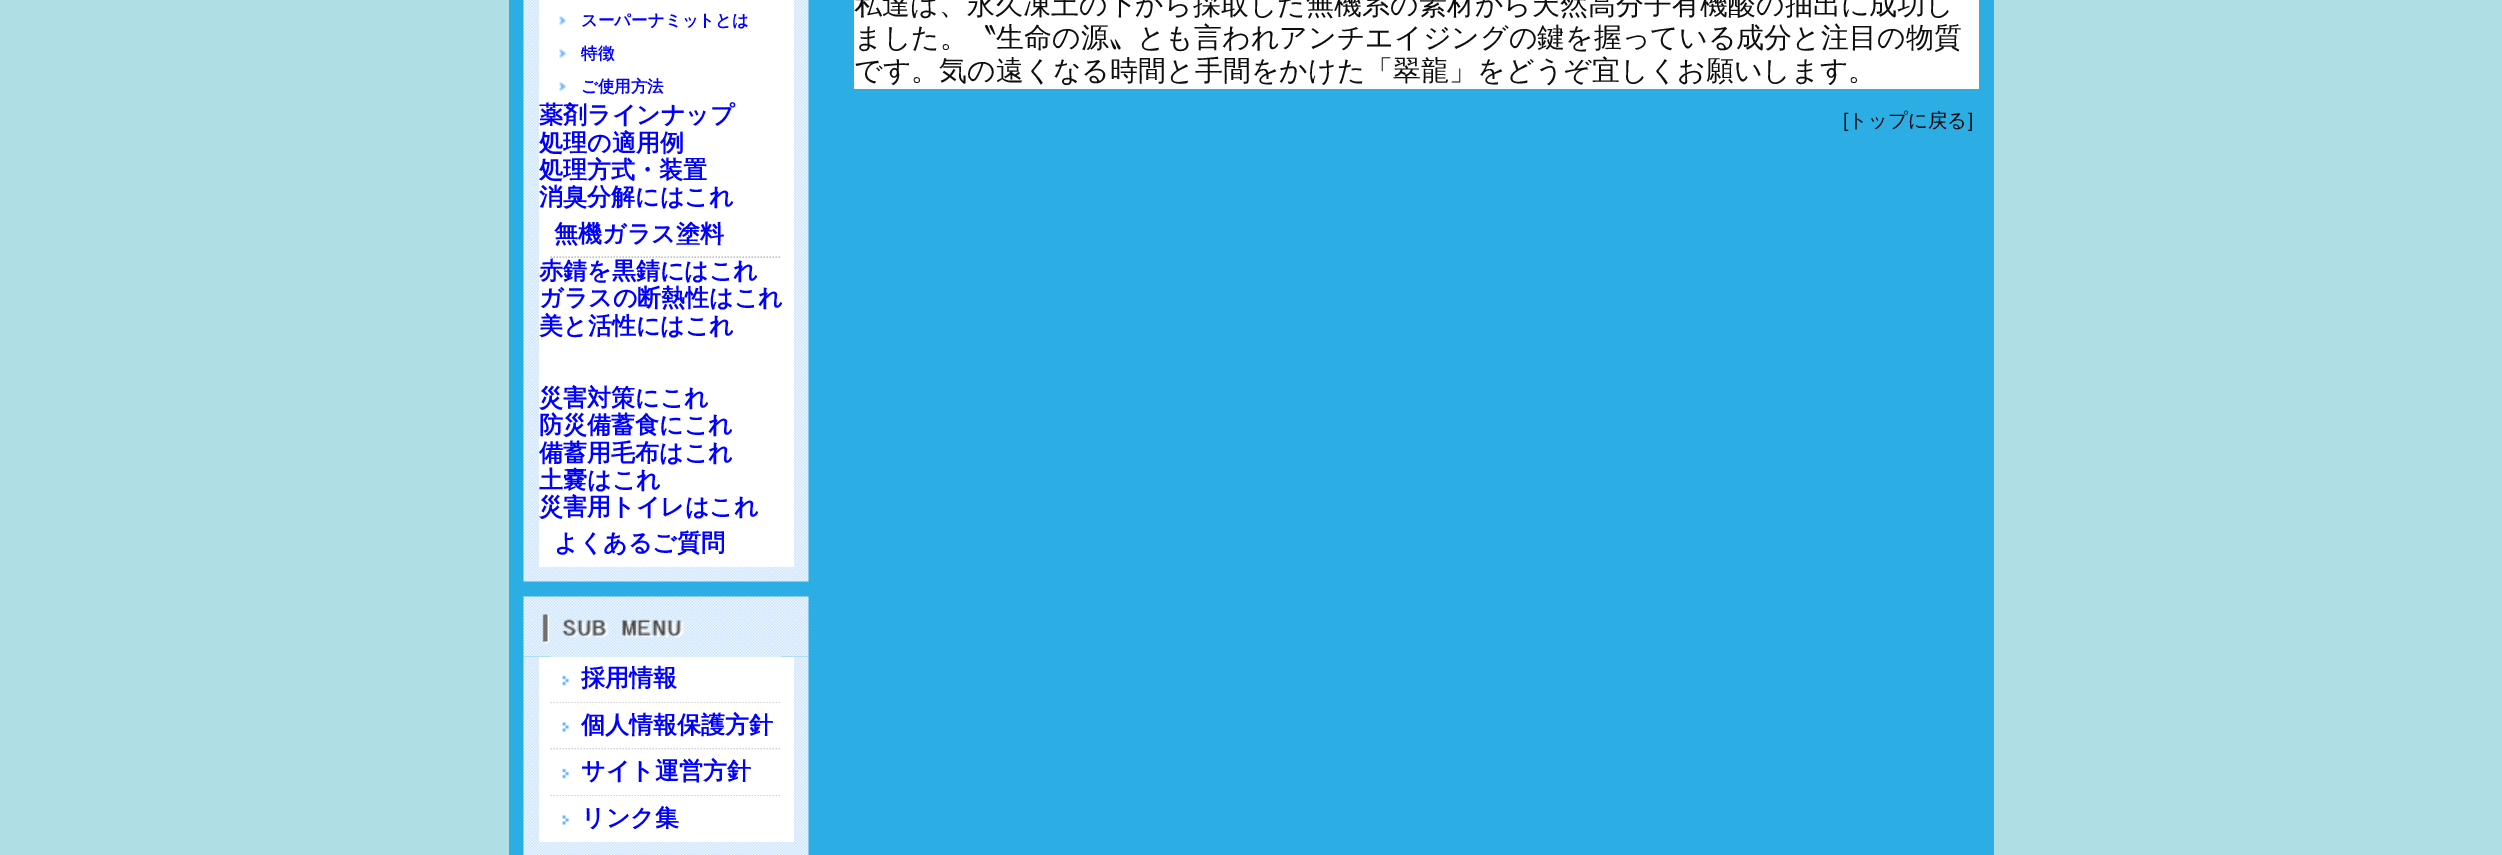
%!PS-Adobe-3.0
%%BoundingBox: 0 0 2502 855
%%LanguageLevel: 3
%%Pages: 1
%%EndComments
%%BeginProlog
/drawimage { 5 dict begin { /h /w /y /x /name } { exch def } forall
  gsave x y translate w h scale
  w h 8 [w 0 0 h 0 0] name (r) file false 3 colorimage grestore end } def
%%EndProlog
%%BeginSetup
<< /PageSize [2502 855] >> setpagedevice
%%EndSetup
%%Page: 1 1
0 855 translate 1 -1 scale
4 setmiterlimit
0.686 0.875 0.894 setrgbcolor
0 0 2502 855 rectfill
0.173 0.678 0.894 setrgbcolor
509 0 1485 855 rectfill
(images/1.raw) 523 0 286 582 drawimage
1 setgray
539 0 255 567 rectfill
(images/2.raw) 559 15 7 11 drawimage
(images/2.raw) 559 48 7 11 drawimage
(images/2.raw) 559 81 7 11 drawimage
0.769 setgray
1.5 setlinewidth
[1.5 1.5] 0 setdash
newpath 550.5 257 moveto 781.5 257 lineto stroke
(images/3.raw) 523 596 286 61 drawimage
(images/4.raw) 523 656 286 199 drawimage
1 setgray
539 657 255 185 rectfill
(images/5.raw) 550 656 232 30 drawimage
0.769 setgray
newpath 550.5 703 moveto 781.5 703 lineto stroke
(images/6.raw) 550 703 230 29 drawimage
newpath 550.5 749 moveto 781.5 749 lineto stroke
(images/7.raw) 550 749 230 30 drawimage
newpath 550.5 796 moveto 781.5 796 lineto stroke
(images/6.raw) 550 796 230 29 drawimage
1 setgray
854 0 1125 89 rectfill
/WenQuanYiZenHei-Bold [16.5 0 0 -16.5 0 0] selectfont
0 0 1 setrgbcolor
581 26 moveto (スーパーナミットとは) show
581 59 moveto (特徴) show
581 92 moveto (ご使用方法) show
/WenQuanYiZenHei-Bold [24 0 0 -24 0 0] selectfont
539 123 moveto (薬剤ラインナップ) show
539 151 moveto (処理の適用例) show
539 178 moveto (処理方式・装置) show
539 205 moveto (消臭分解にはこれ) show
554 242 moveto (無機ガラス塗料) show
539 279 moveto (赤錆を黒錆にはこれ) show
539 306 moveto (ガラスの断熱性はこれ) show
539 334 moveto (美と活性にはこれ) show
539 406 moveto (災害対策にこれ) show
539 433 moveto (防災備蓄食にこれ) show
539 461 moveto (備蓄用毛布はこれ) show
539 488 moveto (土嚢はこれ) show
539 515 moveto (災害用トイレはこれ) show
554 551 moveto (よくあるご質問) show
581 686 moveto (採用情報) show
581 733 moveto (個人情報保護方針) show
581 779 moveto (サイト運営方針) show
581 826 moveto (リンク集) show
/WenQuanYiZenHei-Medium [28 0 0 -28 0 0] selectfont
0.055 setgray
854 14 moveto (私達は、永久凍土の下から採取した無機系の素材から天然高分子有機酸の抽出に成功し) show
854 47 moveto (ました。〝生命の源〟とも言われアンチエイジングの鍵を握っている成分と注目の物質) show
854 80 moveto (です。気の遠くなる時間と手間をかけた「翠龍」をどうぞ宜しくお願いします。) show
/LiberationSans-Regular [19.5 0 0 -19.5 0 0] selectfont
1843 127 moveto ([) show
/WenQuanYiZenHei-Medium [19.5 0 0 -19.5 0 0] selectfont
0.024 setgray
1848 127 moveto (トップに戻る) show
/LiberationSans-Regular [19.5 0 0 -19.5 0 0] selectfont
0.055 setgray
1968 127 moveto (]) show
showpage
%%EOF
